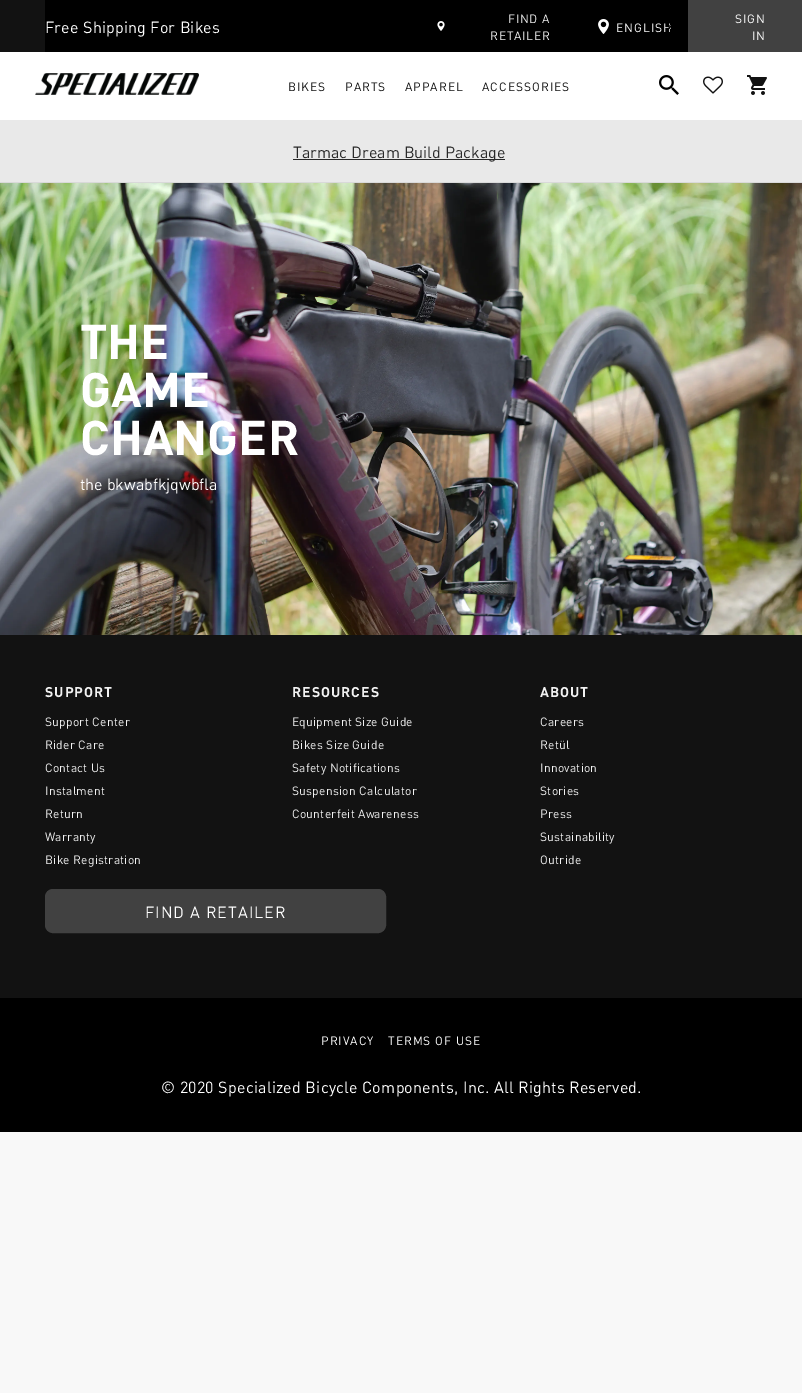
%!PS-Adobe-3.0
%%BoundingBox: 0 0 802 1393
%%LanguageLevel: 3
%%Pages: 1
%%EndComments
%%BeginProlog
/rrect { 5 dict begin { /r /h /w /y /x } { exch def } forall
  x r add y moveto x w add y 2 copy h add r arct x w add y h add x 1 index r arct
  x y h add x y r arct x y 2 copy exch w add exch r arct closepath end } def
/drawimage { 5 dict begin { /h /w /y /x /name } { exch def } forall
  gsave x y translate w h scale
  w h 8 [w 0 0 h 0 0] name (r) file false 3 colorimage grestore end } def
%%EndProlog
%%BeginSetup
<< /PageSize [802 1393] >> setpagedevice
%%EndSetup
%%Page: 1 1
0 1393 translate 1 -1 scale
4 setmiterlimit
0.973 setgray
0 0 802 1393 rectfill
1 setgray
0 52 802 68 rectfill
0.071 setgray
0 0 45 52 rectfill
0 setgray
45 0 643 52 rectfill
(images/1.raw) 437 21 8 10 drawimage
(images/2.raw) 598 19 11 15 drawimage
0.255 setgray
688 0 114 52 rectfill
(images/4.raw) 35 73 164 22 drawimage
(images/5.raw) 659 75 20 20 drawimage
(images/6.raw) 703 76 20 18 drawimage
(images/7.raw) 747 75 20 20 drawimage
0.914 setgray
0 120 802 62 rectfill
0.851 setgray
0 182 802 1 rectfill
0.161 setgray
293 159 212 1 rectfill
(images/8.raw) 0 183 802 452 drawimage
0.071 setgray
0 635 802 363 rectfill
0.255 setgray
45.5 889.5 340 43 7.5 rrect gsave fill grestore
stroke
0 setgray
0 998 802 134 rectfill
/DIN-Regular [16 0 0 -16 0 0] selectfont
1 setgray
45 33 moveto 0.2 0 (Free Shipping For Bikes) ashow
/DIN-Regular [12 0 0 -12 0 0] selectfont
0.945 setgray
508 23 moveto 0.75 0 (FIND A) ashow
490 40 moveto 0.75 0 (RETAILER) ashow
1 setgray
616 32 moveto 1 0 (ENGLISH) ashow
(images/3.raw) 668 25 3 4 drawimage
735 23 moveto 1 0 (SIGN) ashow
752 40 moveto 1 0 (IN) ashow
0.071 setgray
288 91 moveto 1 0 (BIKES) ashow
345 91 moveto 1 0 (PARTS) ashow
405 91 moveto 1 0 (APPAREL) ashow
482 91 moveto 1 0 (ACCESSORIES) ashow
/DIN-Regular [16 0 0 -16 0 0] selectfont
0.161 setgray
293 158 moveto (Tarmac Dream Build Package) show
/DIN-Bold [48 0 0 -48 0 0] selectfont
1 setgray
80 359 moveto (THE) show
80 407 moveto (GAME) show
80 455 moveto (CHANGER) show
/DIN-Regular [16 0 0 -16 0 0] selectfont
80 490 moveto (the bkwabfkjqwbfla) show
/DIN-Bold [14 0 0 -14 0 0] selectfont
0.945 setgray
45 697 moveto 1 0 (SUPPORT) ashow
/DIN-Regular [12 0 0 -12 0 0] selectfont
45 726 moveto 0.25 0 (Support Center) ashow
45 749 moveto 0.25 0 (Rider Care) ashow
45 772 moveto 0.25 0 (Contact Us) ashow
45 795 moveto 0.25 0 (Instalment) ashow
45 818 moveto 0.25 0 (Return) ashow
45 841 moveto 0.25 0 (Warranty) ashow
45 864 moveto 0.25 0 (Bike Registration) ashow
/DIN-Bold [14 0 0 -14 0 0] selectfont
292 697 moveto 1 0 (RESOURCES) ashow
/DIN-Regular [12 0 0 -12 0 0] selectfont
292 726 moveto 0.25 0 (Equipment Size Guide) ashow
292 749 moveto 0.25 0 (Bikes Size Guide) ashow
292 772 moveto 0.25 0 (Safety Notifications) ashow
292 795 moveto 0.25 0 (Suspension Calculator) ashow
292 818 moveto 0.25 0 (Counterfeit Awareness) ashow
/DIN-Bold [14 0 0 -14 0 0] selectfont
540 697 moveto 1 0 (ABOUT) ashow
/DIN-Regular [12 0 0 -12 0 0] selectfont
540 726 moveto 0.25 0 (Careers) ashow
540 749 moveto 0.25 0 (Retül) ashow
540 772 moveto 0.25 0 (Innovation) ashow
540 795 moveto 0.25 0 (Stories) ashow
540 818 moveto 0.25 0 (Press) ashow
540 841 moveto 0.25 0 (Sustainability) ashow
540 864 moveto 0.25 0 (Outride) ashow
/DIN-Regular [16 0 0 -16 0 0] selectfont
1 setgray
145 918 moveto 1 0 (FIND A RETAILER) ashow
/DIN-Regular [12 0 0 -12 0 0] selectfont
321 1045 moveto 1 0 (PRIVACY) ashow
388 1045 moveto 1 0 (TERMS OF USE) ashow
/DIN-Regular [16 0 0 -16 0 0] selectfont
161 1093 moveto 0.25 0 (© 2020 Specialized Bicycle Components, Inc. All Rights Reserved.) ashow
showpage
%%EOF
